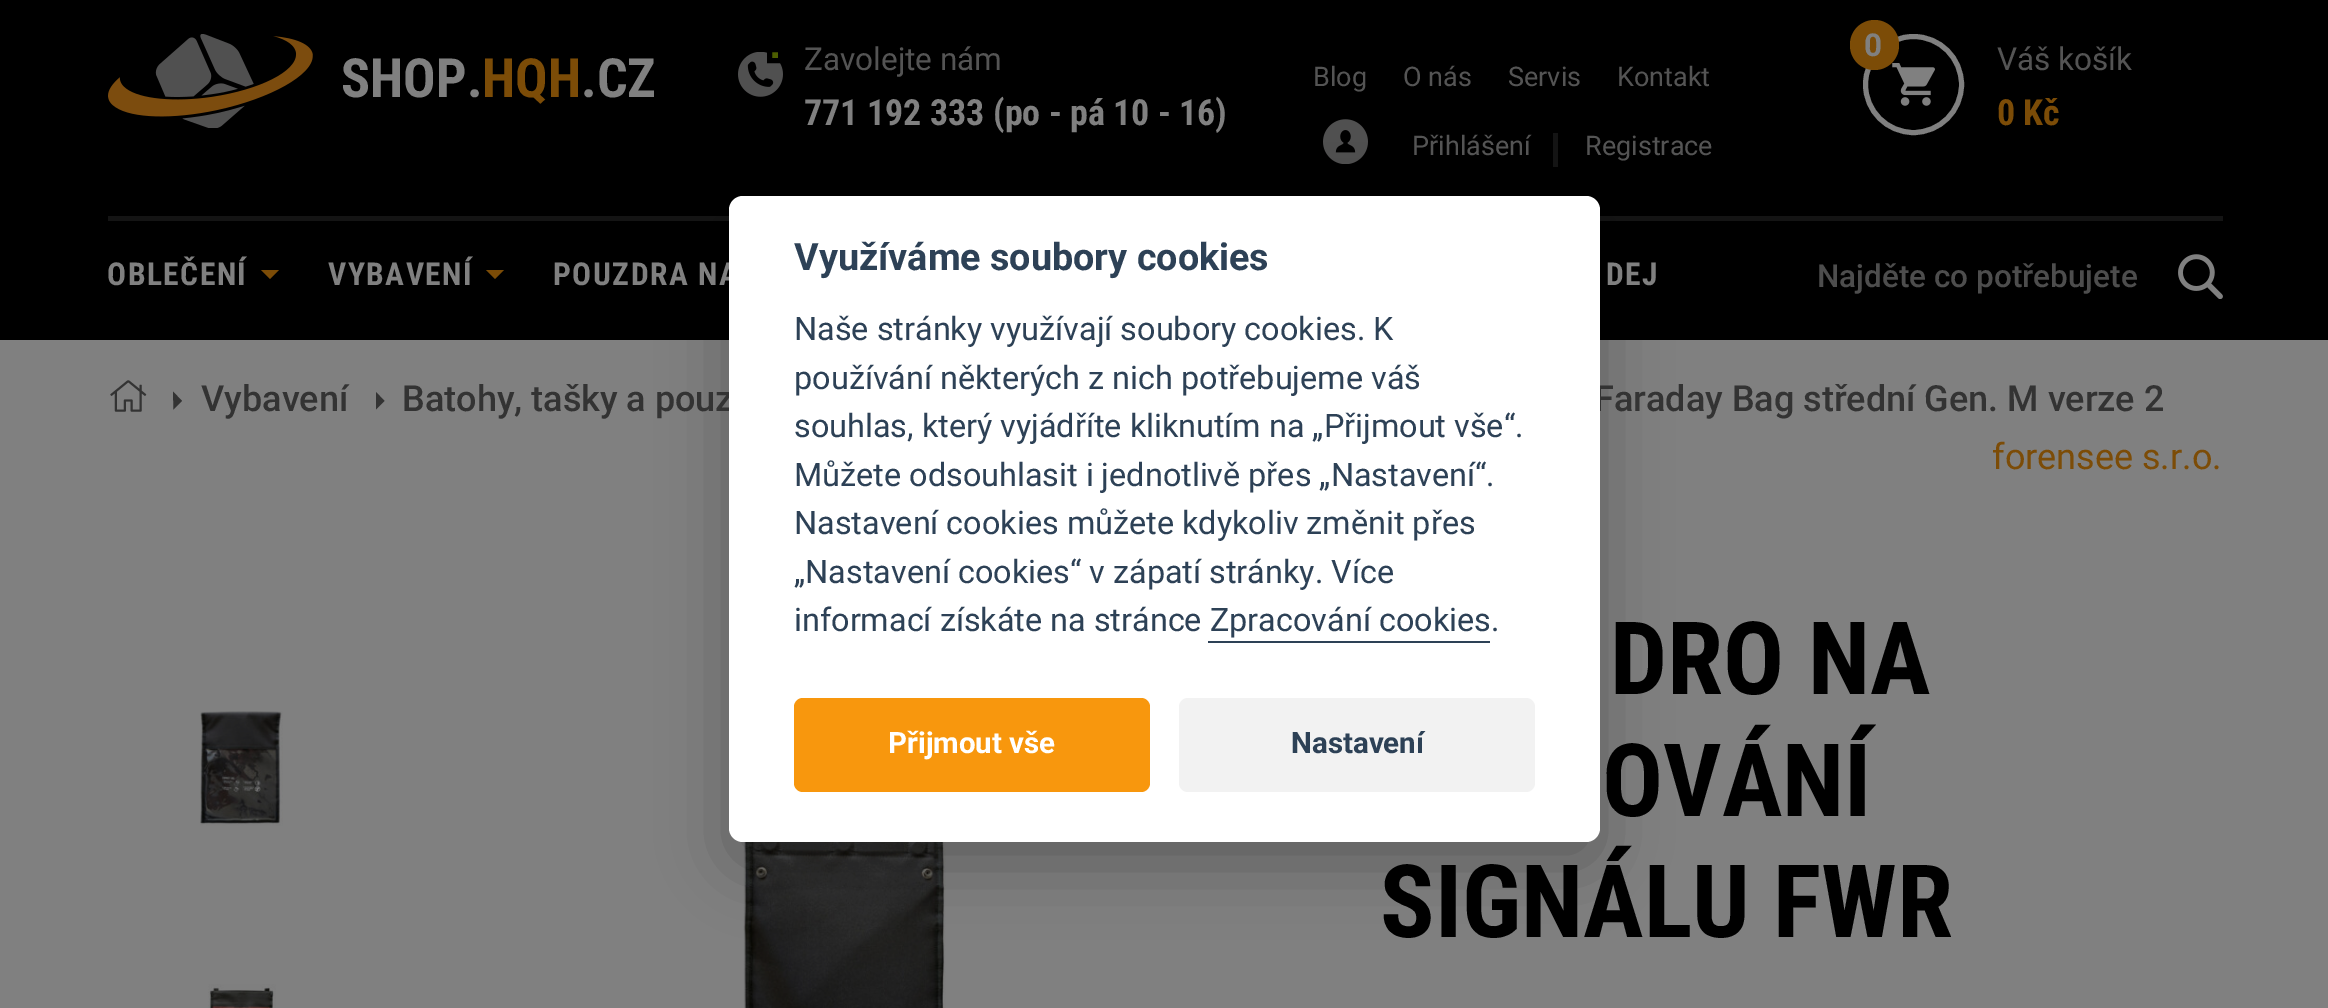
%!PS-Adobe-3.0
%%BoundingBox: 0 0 2328 1008
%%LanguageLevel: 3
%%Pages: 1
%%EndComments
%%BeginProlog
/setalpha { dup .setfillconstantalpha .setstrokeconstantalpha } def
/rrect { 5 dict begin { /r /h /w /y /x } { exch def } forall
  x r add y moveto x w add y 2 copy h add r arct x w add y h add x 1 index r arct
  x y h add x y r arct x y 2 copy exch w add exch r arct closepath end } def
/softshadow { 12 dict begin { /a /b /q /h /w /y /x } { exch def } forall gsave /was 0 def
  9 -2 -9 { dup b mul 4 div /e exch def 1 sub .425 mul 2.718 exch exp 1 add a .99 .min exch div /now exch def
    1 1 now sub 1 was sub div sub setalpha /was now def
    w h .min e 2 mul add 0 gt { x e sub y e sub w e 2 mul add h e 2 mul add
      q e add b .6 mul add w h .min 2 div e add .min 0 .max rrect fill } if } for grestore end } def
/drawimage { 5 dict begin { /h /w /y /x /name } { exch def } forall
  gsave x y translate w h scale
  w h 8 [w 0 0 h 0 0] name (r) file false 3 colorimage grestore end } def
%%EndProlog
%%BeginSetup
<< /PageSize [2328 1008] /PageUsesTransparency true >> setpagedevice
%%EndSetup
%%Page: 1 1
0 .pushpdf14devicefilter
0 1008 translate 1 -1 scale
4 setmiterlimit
0.502 setgray
0 0 2328 1008 rectfill
0 setgray
0 0 2328 340 rectfill
(images/1.raw) 108 34 205 94 drawimage
(images/2.raw) 738 52 45 45 drawimage
0.302 0.369 0 setrgbcolor
newpath 769.5 49.5 moveto 780.5 49.5 lineto 780.5 60.5 lineto 769.5 60.5 lineto closepath gsave fill grestore
0 setgray
5 setlinewidth
stroke
(images/3.raw) 1323 119 45 45 drawimage
0.078 setgray
1553 133 5 34 rectfill
(images/4.raw) 1892 63 43 43 drawimage
0.502 setgray
newpath 1913.5 84.5 48 0 360 arc closepath stroke
0.486 0.298 0.027 setrgbcolor
1850 20 49 50 24.5 rrect fill
0.078 setgray
108 216 2115 5 rectfill
0.486 0.298 0.027 setrgbcolor
newpath 261 270 moveto 279 270 lineto 270 279 lineto closepath fill
newpath 486 270 moveto 504 270 lineto 495 279 lineto closepath fill
(images/5.raw) 2178 254 45 45 drawimage
(images/9.raw) 743 842 203 166 drawimage
0.008 0.008 0.012 setrgbcolor
729 218 871 646 14 34 0.28 softshadow
(images/6.raw) 110 380 37 32 drawimage
0.2 setgray
newpath 173.5 409.5 moveto 182 401 lineto 173 391.5 lineto closepath fill
gsave
376 392 9 18 rectclip
newpath 376 409.5 moveto 384.5 401 lineto 375.5 391.5 lineto closepath fill
grestore
(images/7.raw) 200 711 83 115 drawimage
(images/8.raw) 208 984 68 24 drawimage
/RobotoCondensed-Bold [54 0 0 -54 0 0] selectfont
0.502 setgray
341 97 moveto (SHOP.) show
0.486 0.298 0.027 setrgbcolor
482 97 moveto (HQH) show
0.502 setgray
581 97 moveto (.CZ) show
/Roboto-Regular [31.5 0 0 -31.5 0 0] selectfont
0.329 setgray
804 70 moveto (Zavolejte nám) show
/RobotoCondensed-Bold [36 0 0 -36 0 0] selectfont
0.502 setgray
804 125 moveto (771 192 333) show
993 125 moveto (\(po - pá 10 - 16\)) show
/Roboto-Regular [27 0 0 -27 0 0] selectfont
0.329 setgray
1313 86 moveto (Blog) show
1403 86 moveto (O nás) show
1508 86 moveto (Servis) show
1617 86 moveto (Kontakt) show
1412 155 moveto (Přihlášení) show
1585 155 moveto (Registrace) show
/Roboto-Bold [31.5 0 0 -31.5 0 0] selectfont
0.502 setgray
1864 56 moveto (0) show
/Roboto-Regular [31.5 0 0 -31.5 0 0] selectfont
0.329 setgray
1997 70 moveto (Váš košík) show
/RobotoCondensed-Bold [36 0 0 -36 0 0] selectfont
0.486 0.298 0.027 setrgbcolor
1997 125 moveto (0 Kč) show
/RobotoCondensed-Bold [31.5 0 0 -31.5 0 0] selectfont
0.502 setgray
107 285 moveto 1.5 0 (OBLEČENÍ) ashow
328 285 moveto 1.5 0 (VYBAVENÍ) ashow
553 285 moveto 1.5 0 (POUZDRA NA) ashow
1606 285 moveto 1.5 0 (DEJ) ashow
/Roboto-Medium [31.5 0 0 -31.5 0 0] selectfont
0.302 setgray
1817 287 moveto (Najděte co potřebujete) show
/Roboto-Medium [36 0 0 -36 0 0] selectfont
0.2 setgray
201 411 moveto (Vybavení) show
402 411 moveto (Batohy, tašky a pouz) show
1594 411 moveto (Faraday Bag střední Gen. M verze 2) show
1 setgray
729 196 871 646 14 rrect fill
0.949 setgray
1179 698 356 94 9 rrect fill
/Roboto-Bold [29.5 0 0 -29.5 0 0] selectfont
0.176 0.255 0.337 setrgbcolor
1291 753 moveto (Nastavení) show
0.973 0.592 0.051 setrgbcolor
794 698 356 94 9 rrect fill
1 setgray
888 753 moveto (Přijmout vše) show
0.176 0.255 0.337 setrgbcolor
1208 641 282 2 rectfill
/Roboto-Regular [32.4 0 0 -32.4 0 0] selectfont
794 631 moveto (informací získáte na stránce Zpracování cookies.) show
794 583 moveto („Nastavení cookies“ v zápatí stránky. Více) show
794 534 moveto (Nastavení cookies můžete kdykoliv změnit přes) show
794 486 moveto (Můžete odsouhlasit i jednotlivě přes „Nastavení“.) show
794 437 moveto (souhlas, který vyjádříte kliknutím na „Přijmout vše“.) show
794 389 moveto (používání některých z nich potřebujeme váš) show
794 340 moveto (Naše stránky využívají soubory cookies. K) show
/Roboto-Bold [37.75 0 0 -37.75 0 0] selectfont
794 270 moveto (Využíváme soubory cookies) show
/Roboto-Regular [36 0 0 -36 0 0] selectfont
0.486 0.298 0.027 setrgbcolor
1992 469 moveto (forensee s.r.o.) show
/RobotoCondensed-Bold [101.25 0 0 -101.25 0 0] selectfont
0 setgray
1610 694 moveto (DRO NA) show
1602 816 moveto (OVÁNÍ) show
1380 937 moveto (SIGNÁLU FWR) show
.poppdf14devicefilter showpage
%%EOF
